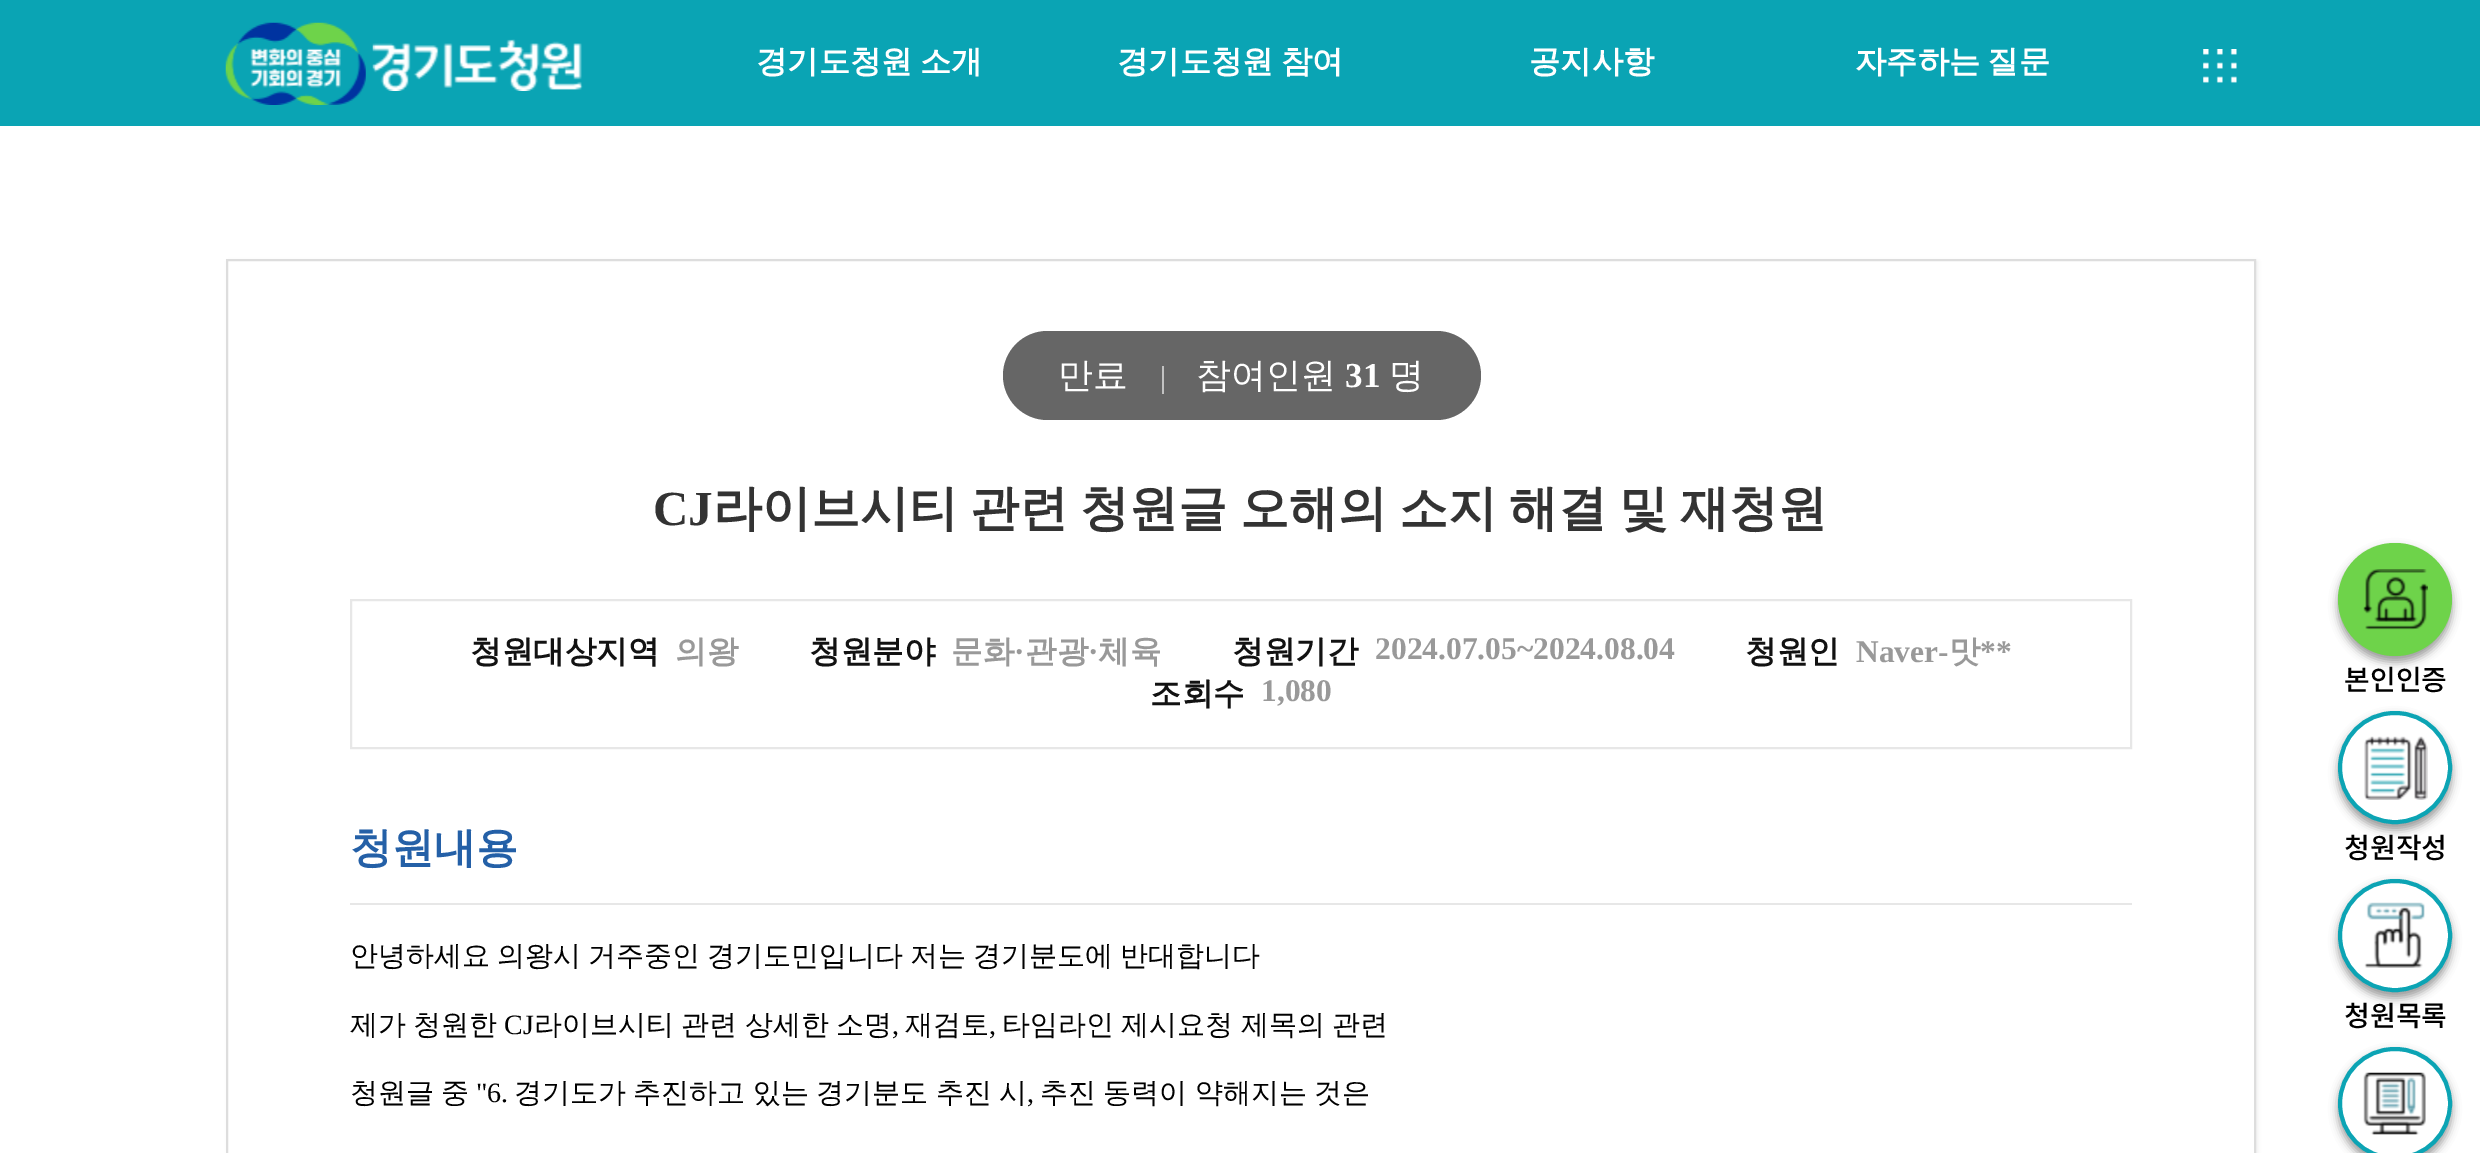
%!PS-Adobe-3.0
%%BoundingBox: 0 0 2480 1153
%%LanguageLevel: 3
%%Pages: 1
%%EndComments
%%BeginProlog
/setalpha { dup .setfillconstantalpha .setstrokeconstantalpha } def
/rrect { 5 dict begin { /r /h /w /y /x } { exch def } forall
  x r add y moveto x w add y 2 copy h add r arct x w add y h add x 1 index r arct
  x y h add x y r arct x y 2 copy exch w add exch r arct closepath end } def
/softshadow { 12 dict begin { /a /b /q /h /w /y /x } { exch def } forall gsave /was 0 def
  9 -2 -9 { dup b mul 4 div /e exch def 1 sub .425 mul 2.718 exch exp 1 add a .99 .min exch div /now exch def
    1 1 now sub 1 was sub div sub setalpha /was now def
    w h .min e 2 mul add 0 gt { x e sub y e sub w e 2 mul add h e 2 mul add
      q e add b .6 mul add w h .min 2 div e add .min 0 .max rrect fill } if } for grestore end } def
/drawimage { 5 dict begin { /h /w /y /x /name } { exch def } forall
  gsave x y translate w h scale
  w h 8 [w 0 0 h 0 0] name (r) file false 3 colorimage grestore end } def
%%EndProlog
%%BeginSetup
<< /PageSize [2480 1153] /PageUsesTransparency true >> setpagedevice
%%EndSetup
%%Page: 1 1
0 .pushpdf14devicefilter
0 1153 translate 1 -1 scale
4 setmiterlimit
1 setgray
0 0 2480 1153 rectfill
0.039 0.643 0.706 setrgbcolor
0 0 2480 126 rectfill
(images/1.raw) 225 22 141 83 drawimage
(images/2.raw) 372 39 211 52 drawimage
(images/3.raw) 2203 49 34 34 drawimage
0 setgray
228 261 2030 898 0 2 0.05 softshadow
1 setgray
newpath 227 260 moveto 2255 260 lineto 2255 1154 lineto 227 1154 lineto closepath gsave fill grestore
0.867 setgray
2 setlinewidth
stroke
0.4 setgray
1003 331 478 89 44.5 rrect fill
0.761 setgray
1162 366 2 28 rectfill
0.906 setgray
351 600 1780 148 rectstroke
350 903 1782 2 rectfill
0.6 setgray
2338 548 114 114 57 4.5 1 softshadow
0.431 0.827 0.29 setrgbcolor
2338 543 114 113 56.5 rrect fill
(images/4.raw) 2363 569 65 61 drawimage
0.6 setgray
2338 716 114 114 57 4.5 1 softshadow
1 setgray
2340 713 110 109 54.5 rrect gsave fill grestore
0.047 0.643 0.706 setrgbcolor
4 setlinewidth
stroke
(images/5.raw) 2364 736 64 64 drawimage
0.6 setgray
2338 884 114 114 57 4.5 1 softshadow
1 setgray
2340 881 110 109 54.5 rrect gsave fill grestore
0.047 0.643 0.706 setrgbcolor
stroke
(images/6.raw) 2364 902 61 66 drawimage
0.6 setgray
2338 1052 114 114 57 4.5 1 softshadow
1 setgray
2340 1049 110 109 54.5 rrect gsave fill grestore
0.047 0.643 0.706 setrgbcolor
stroke
(images/7.raw) 2363 1072 63 63 drawimage
/WenQuanYiZenHei-Bold [31.25 0 0 -31.25 0 0] selectfont
1 setgray
756 72 moveto -2 0 32 (경기도청원 소개) widthshow
1117 72 moveto -2 0 32 (경기도청원 참여) widthshow
1529 72 moveto (공지사항) show
1855 72 moveto -2 0 32 (자주하는 질문) widthshow
/WenQuanYiZenHei-Medium [35 0 0 -35 0 0] selectfont
1058 387 moveto (만료) show
1196 387 moveto (참여인원) show
/LiberationSerif-Bold [35 0 0 -35 0 0] selectfont
1345 387 moveto (31) show
/WenQuanYiZenHei-Medium [35 0 0 -35 0 0] selectfont
1389 387 moveto (명) show
/LiberationSerif-Bold [49 0 0 -49 0 0] selectfont
0.2 setgray
653 525 moveto (CJ) show
/WenQuanYiZenHei-Bold [49 0 0 -49 0 0] selectfont
713 525 moveto -2.5 0 32 (라이브시티 관련 청원글 오해의 소지 해결 및 재청원) widthshow
/WenQuanYiZenHei-Bold [31.5 0 0 -31.5 0 0] selectfont
0.071 setgray
470 662 moveto (청원대상지역) show
0.6 setgray
675 662 moveto (의왕) show
0.071 setgray
809 662 moveto (청원분야) show
0.6 setgray
951 662 moveto (문화) show
/LiberationSerif-Bold [31.5 0 0 -31.5 0 0] selectfont
1014 662 moveto (·) show
/WenQuanYiZenHei-Bold [31.5 0 0 -31.5 0 0] selectfont
1025 662 moveto (관광) show
/LiberationSerif-Bold [31.5 0 0 -31.5 0 0] selectfont
1088 662 moveto (·) show
/WenQuanYiZenHei-Bold [31.5 0 0 -31.5 0 0] selectfont
1098 662 moveto (체육) show
0.071 setgray
1232 662 moveto (청원기간) show
/LiberationSerif-Bold [31.5 0 0 -31.5 0 0] selectfont
0.6 setgray
1375 659 moveto (2024.07.05~2024.08.04) show
/WenQuanYiZenHei-Bold [31.5 0 0 -31.5 0 0] selectfont
0.071 setgray
1745 662 moveto (청원인) show
/LiberationSerif-Bold [31.5 0 0 -31.5 0 0] selectfont
0.6 setgray
1856 662 moveto (Naver-) show
/WenQuanYiZenHei-Bold [31.5 0 0 -31.5 0 0] selectfont
1949 662 moveto (맛) show
/LiberationSerif-Bold [31.5 0 0 -31.5 0 0] selectfont
1980 662 moveto (**) show
/WenQuanYiZenHei-Bold [31.5 0 0 -31.5 0 0] selectfont
0.071 setgray
1150 704 moveto (조회수) show
/LiberationSerif-Bold [31.5 0 0 -31.5 0 0] selectfont
0.6 setgray
1261 701 moveto (1,080) show
/WenQuanYiZenHei-Bold [42 0 0 -42 0 0] selectfont
0.141 0.376 0.655 setrgbcolor
350 862 moveto (청원내용) show
/WenQuanYiZenHei-Medium [28 0 0 -28 0 0] selectfont
0 setgray
350 965 moveto -1.5 0 32 (안녕하세요 의왕시 거주중인 경기도민입니다) widthshow
910 965 moveto -1.5 0 32 (저는 경기분도에 반대합니다) widthshow
350 1034 moveto -1.5 0 32 (제가 청원한) widthshow
/LiberationSerif-Regular [28 0 0 -28 0 0] selectfont
504 1034 moveto (CJ) show
/WenQuanYiZenHei-Medium [28 0 0 -28 0 0] selectfont
534 1034 moveto -1 0 32 (라이브시티 관련 상세한 소명) widthshow
/LiberationSerif-Regular [28 0 0 -28 0 0] selectfont
892 1034 moveto (,) show
/WenQuanYiZenHei-Medium [28 0 0 -28 0 0] selectfont
905 1034 moveto (재검토) show
/LiberationSerif-Regular [28 0 0 -28 0 0] selectfont
989 1034 moveto (,) show
/WenQuanYiZenHei-Medium [28 0 0 -28 0 0] selectfont
1002 1034 moveto -1 0 32 (타임라인 제시요청 제목의 관련) widthshow
350 1102 moveto -1.5 0 32 (청원글 중) widthshow
/LiberationSerif-Regular [28 0 0 -28 0 0] selectfont
476 1102 moveto ("6.) show
/WenQuanYiZenHei-Medium [28 0 0 -28 0 0] selectfont
514 1102 moveto -1 0 32 (경기도가 추진하고 있는 경기분도 추진 시) widthshow
/LiberationSerif-Regular [28 0 0 -28 0 0] selectfont
1027 1102 moveto (,) show
/WenQuanYiZenHei-Medium [28 0 0 -28 0 0] selectfont
1040 1102 moveto -1 0 32 (추진 동력이 약해지는 것은) widthshow
/NotoSansCJKKR-Medium [28 0 0 -28 0 0] selectfont
2344 690 moveto (본인인증) show
2344 858 moveto (청원작성) show
2344 1026 moveto (청원목록) show
.poppdf14devicefilter showpage
%%EOF
